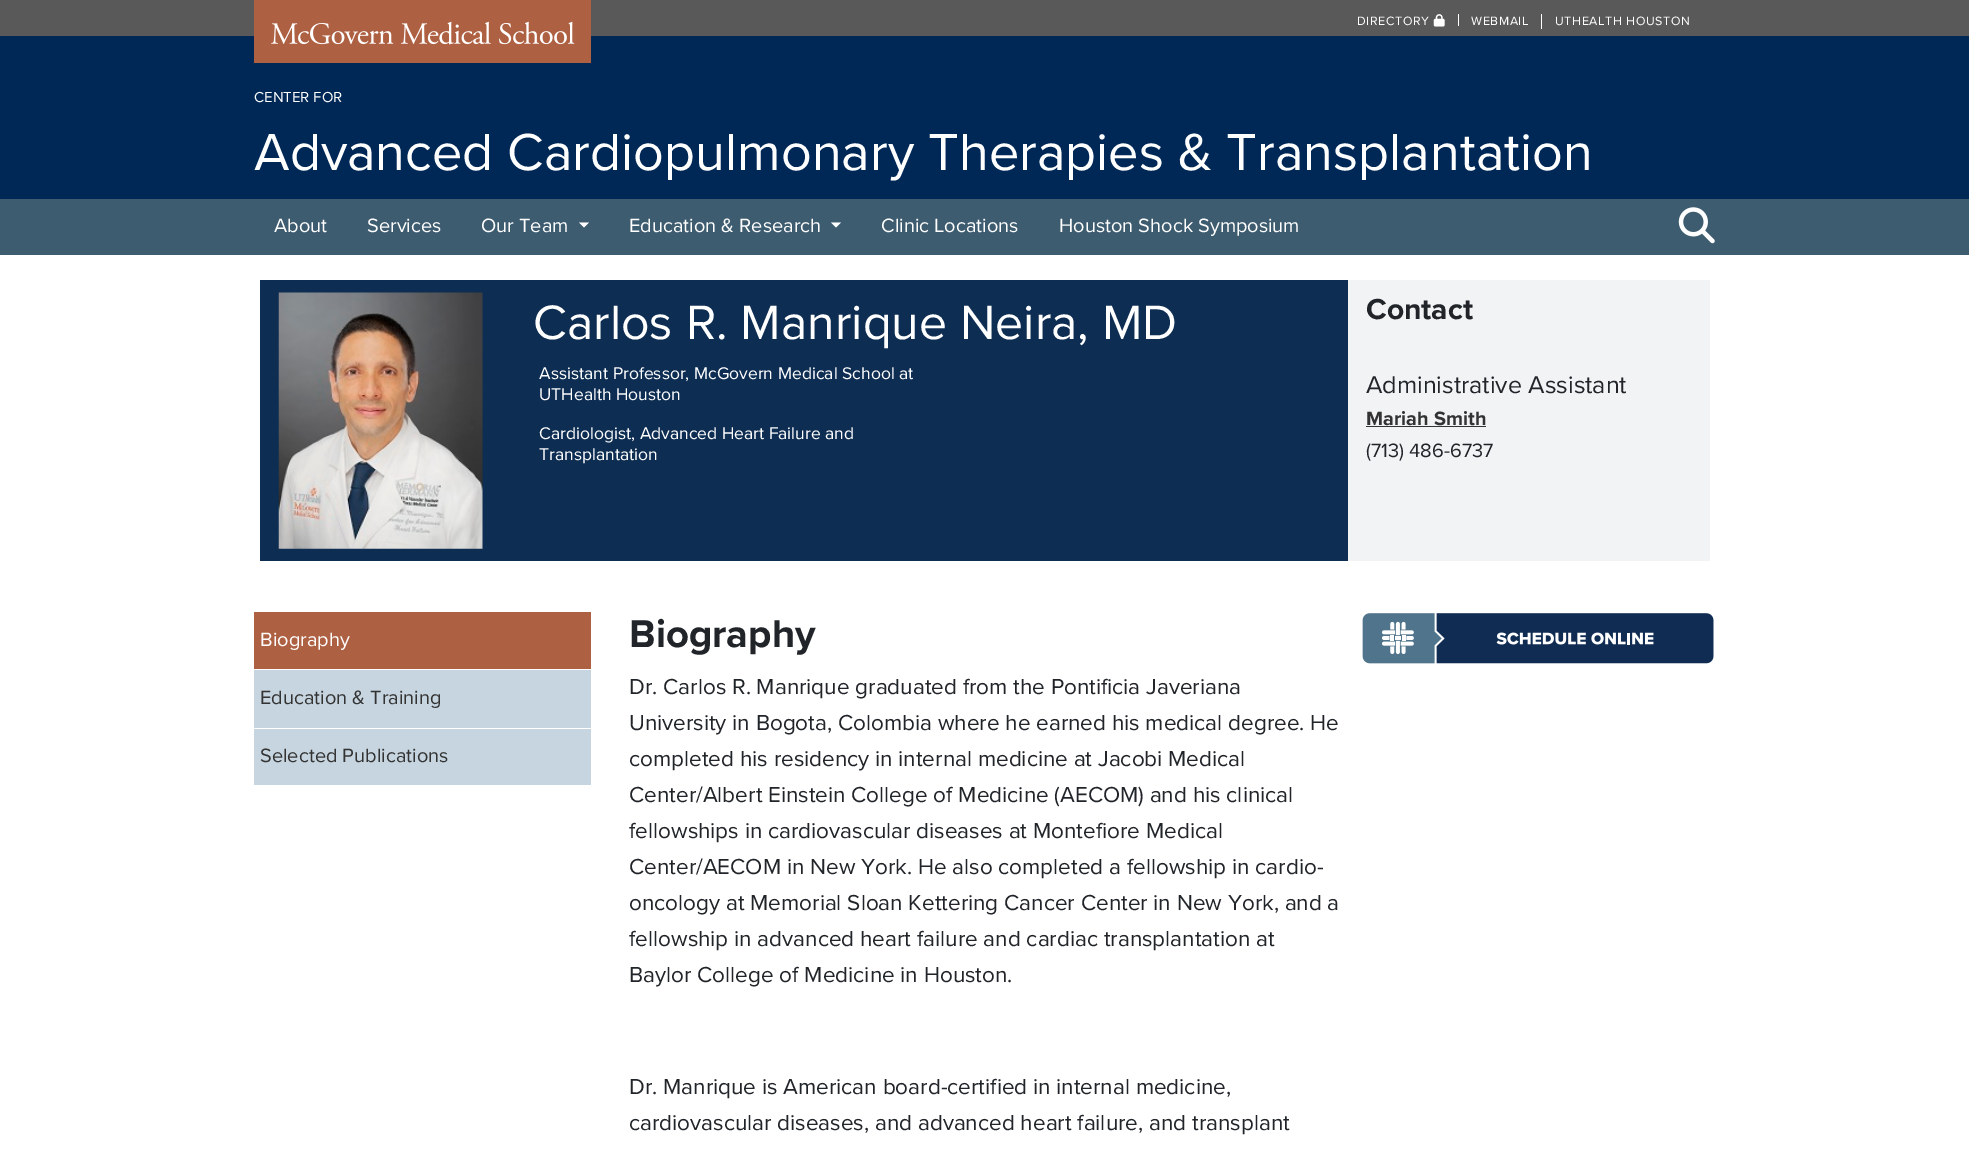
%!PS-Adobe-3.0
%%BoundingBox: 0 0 1969 1151
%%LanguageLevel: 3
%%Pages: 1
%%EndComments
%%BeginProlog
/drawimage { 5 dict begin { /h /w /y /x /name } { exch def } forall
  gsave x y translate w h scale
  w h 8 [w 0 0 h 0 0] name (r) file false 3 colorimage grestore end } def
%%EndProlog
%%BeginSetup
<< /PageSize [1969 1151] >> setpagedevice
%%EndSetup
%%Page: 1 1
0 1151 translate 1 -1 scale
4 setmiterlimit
1 setgray
0 0 1969 1151 rectfill
0.349 setgray
0 0 1969 36 rectfill
0 0.157 0.337 setrgbcolor
0 36 1969 163 rectfill
0.682 0.376 0.259 setrgbcolor
254 0 337 63 rectfill
(images/1.raw) 271 21 304 24 drawimage
1 setgray
1458 14 1 12 rectfill
(images/2.raw) 1433 14 12 13 drawimage
1541 14 1 15 rectfill
0.243 0.361 0.435 setrgbcolor
0 199 1969 56 rectfill
1 setgray
newpath 579 222.5 moveto 589 222.5 lineto 584 227.5 lineto closepath fill
newpath 831 222.5 moveto 841 222.5 lineto 836 227.5 lineto closepath fill
(images/3.raw) 1678 207 37 37 drawimage
0.055 0.176 0.322 setrgbcolor
260 280 1088 281 rectfill
(images/4.raw) 278 292 205 257 drawimage
0.949 0.953 0.961 setrgbcolor
1348 280 362 281 rectfill
0.2 setgray
1366 426 120 1 rectfill
0.682 0.376 0.259 setrgbcolor
254 612 337 57 rectfill
0.776 0.835 0.875 setrgbcolor
254 670 337 58 rectfill
254 729 337 56 rectfill
(images/5.raw) 1362 613 352 51 drawimage
/ProximaNova-Regular [12.5 0 0 -12.5 0 0] selectfont
1 setgray
1357 25 moveto 0.6 0 (DIRECTORY) ashow
1471 25 moveto 0.6 0 (WEBMAIL) ashow
1555 25 moveto 0.6 0 (UTHEALTH HOUSTON) ashow
/ProximaNova-Regular [15 0 0 -15 0 0] selectfont
254 102 moveto (CENTER FOR) show
/ProximaNova-Regular [54 0 0 -54 0 0] selectfont
254 170 moveto (Advanced Cardiopulmonary Therapies & Transplantation) show
/ProximaNova-Regular [20 0 0 -20 0 0] selectfont
274 232 moveto (About) show
367 232 moveto (Services) show
481 232 moveto (Our Team) show
629 232 moveto (Education & Research) show
881 232 moveto (Clinic Locations) show
1059 232 moveto (Houston Shock Symposium) show
/ProximaNova-Bold [30 0 0 -30 0 0] selectfont
0.129 0.145 0.161 setrgbcolor
1366 319 moveto (Contact) show
/ProximaNova-Regular [25 0 0 -25 0 0] selectfont
1366 393 moveto (Administrative Assistant) show
/ProximaNova-Bold [20 0 0 -20 0 0] selectfont
0.2 setgray
1366 425 moveto (Mariah Smith) show
/ProximaNova-Regular [20 0 0 -20 0 0] selectfont
0.129 0.145 0.161 setrgbcolor
1366 457 moveto (\(713\) 486-6737) show
/ProximaNova-Regular [50 0 0 -50 0 0] selectfont
1 setgray
533 339 moveto (Carlos R. Manrique Neira, MD) show
/ProximaNova-Regular [17.5 0 0 -17.5 0 0] selectfont
539 379 moveto (Assistant Professor, McGovern Medical School at) show
539 400 moveto (UTHealth Houston) show
539 439 moveto (Cardiologist, Advanced Heart Failure and) show
539 460 moveto (Transplantation) show
/ProximaNova-Regular [20 0 0 -20 0 0] selectfont
260 646 moveto (Biography) show
0.2 setgray
260 704 moveto (Education & Training) show
260 762 moveto (Selected Publications) show
/ProximaNova-Bold [40 0 0 -40 0 0] selectfont
0.129 0.145 0.161 setrgbcolor
629 647 moveto (Biography) show
/ProximaNova-Regular [22.5 0 0 -22.5 0 0] selectfont
629 694 moveto (Dr. Carlos R. Manrique graduated from the Pontificia Javeriana) show
629 730 moveto (University in Bogota, Colombia where he earned his medical degree. He) show
629 766 moveto (completed his residency in internal medicine at Jacobi Medical) show
629 802 moveto (Center/Albert Einstein College of Medicine \(AECOM\) and his clinical) show
629 838 moveto (fellowships in cardiovascular diseases at Montefiore Medical) show
629 874 moveto (Center/AECOM in New York. He also completed a fellowship in cardio-) show
629 910 moveto (oncology at Memorial Sloan Kettering Cancer Center in New York, and a) show
629 946 moveto (fellowship in advanced heart failure and cardiac transplantation at) show
629 982 moveto (Baylor College of Medicine in Houston.) show
629 1094 moveto (Dr. Manrique is American board-certified in internal medicine,) show
629 1130 moveto (cardiovascular diseases, and advanced heart failure, and transplant) show
showpage
%%EOF
